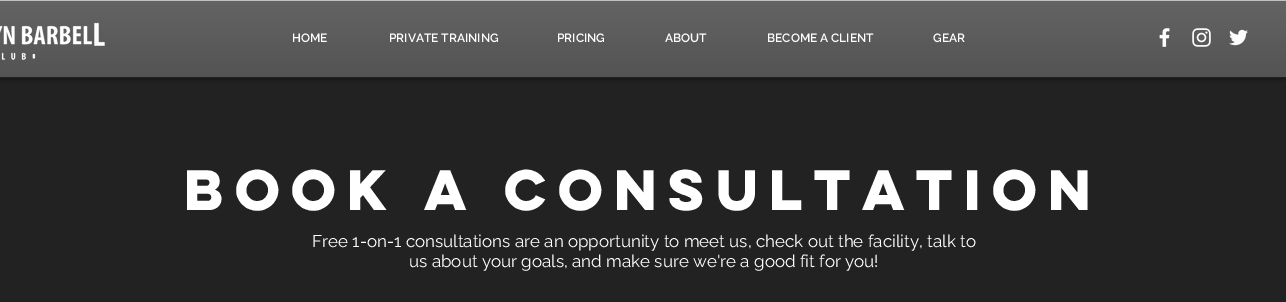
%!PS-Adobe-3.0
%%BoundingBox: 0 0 1286 302
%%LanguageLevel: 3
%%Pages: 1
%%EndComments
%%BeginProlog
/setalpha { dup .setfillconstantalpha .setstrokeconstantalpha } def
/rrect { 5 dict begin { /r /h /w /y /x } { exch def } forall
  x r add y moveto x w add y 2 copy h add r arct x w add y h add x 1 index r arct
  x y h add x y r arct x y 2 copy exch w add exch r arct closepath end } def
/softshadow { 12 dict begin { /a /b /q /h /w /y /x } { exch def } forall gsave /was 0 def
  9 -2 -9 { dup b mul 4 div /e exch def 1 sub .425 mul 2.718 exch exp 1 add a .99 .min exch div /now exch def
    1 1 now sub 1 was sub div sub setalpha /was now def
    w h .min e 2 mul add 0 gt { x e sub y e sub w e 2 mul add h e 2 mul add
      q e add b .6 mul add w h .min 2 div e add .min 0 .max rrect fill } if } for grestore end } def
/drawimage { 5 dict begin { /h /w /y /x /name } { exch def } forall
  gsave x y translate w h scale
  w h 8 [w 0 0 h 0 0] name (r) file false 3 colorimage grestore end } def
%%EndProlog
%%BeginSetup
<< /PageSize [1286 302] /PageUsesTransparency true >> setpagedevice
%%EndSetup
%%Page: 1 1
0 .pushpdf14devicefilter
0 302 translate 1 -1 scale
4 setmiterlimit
0.133 setgray
0 0 1286 302 rectfill
0 setgray
0 0 1286 78 0 2.5 0.6 softshadow
0.18 0.176 0.176 setrgbcolor
0 1 1286 76 rectfill
(images/1.raw) 0 1 1286 76 drawimage
0.129 setgray
0 77 1286 1 rectfill
0.757 setgray
0 0 1286 1 rectfill
(images/2.raw) 0 22 105 38 drawimage
(images/3.raw) 1159 28 11 19 drawimage
(images/4.raw) 1192 28 19 19 drawimage
(images/5.raw) 1229 29 19 17 drawimage
/Raleway-SemiBold [12 0 0 -12 0 0] selectfont
1 setgray
292 42 moveto (HOME) show
389 42 moveto (PRIVATE TRAINING) show
557 42 moveto (PRICING) show
665 42 moveto (ABOUT) show
767 42 moveto (BECOME A CLIENT) show
933 42 moveto (GEAR) show
/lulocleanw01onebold-Bold [51 0 0 -51 0 0] selectfont
184 210 moveto (BOOK A CONSULTATION) show
/Raleway-Regular [17 0 0 -17 0 0] selectfont
312 247 moveto (Free 1-on-1 consultations are an opportunity to meet us, check out the facility, talk to) show
409 267 moveto (us about your goals, and make sure we're a good fit for you!) show
.poppdf14devicefilter showpage
%%EOF
